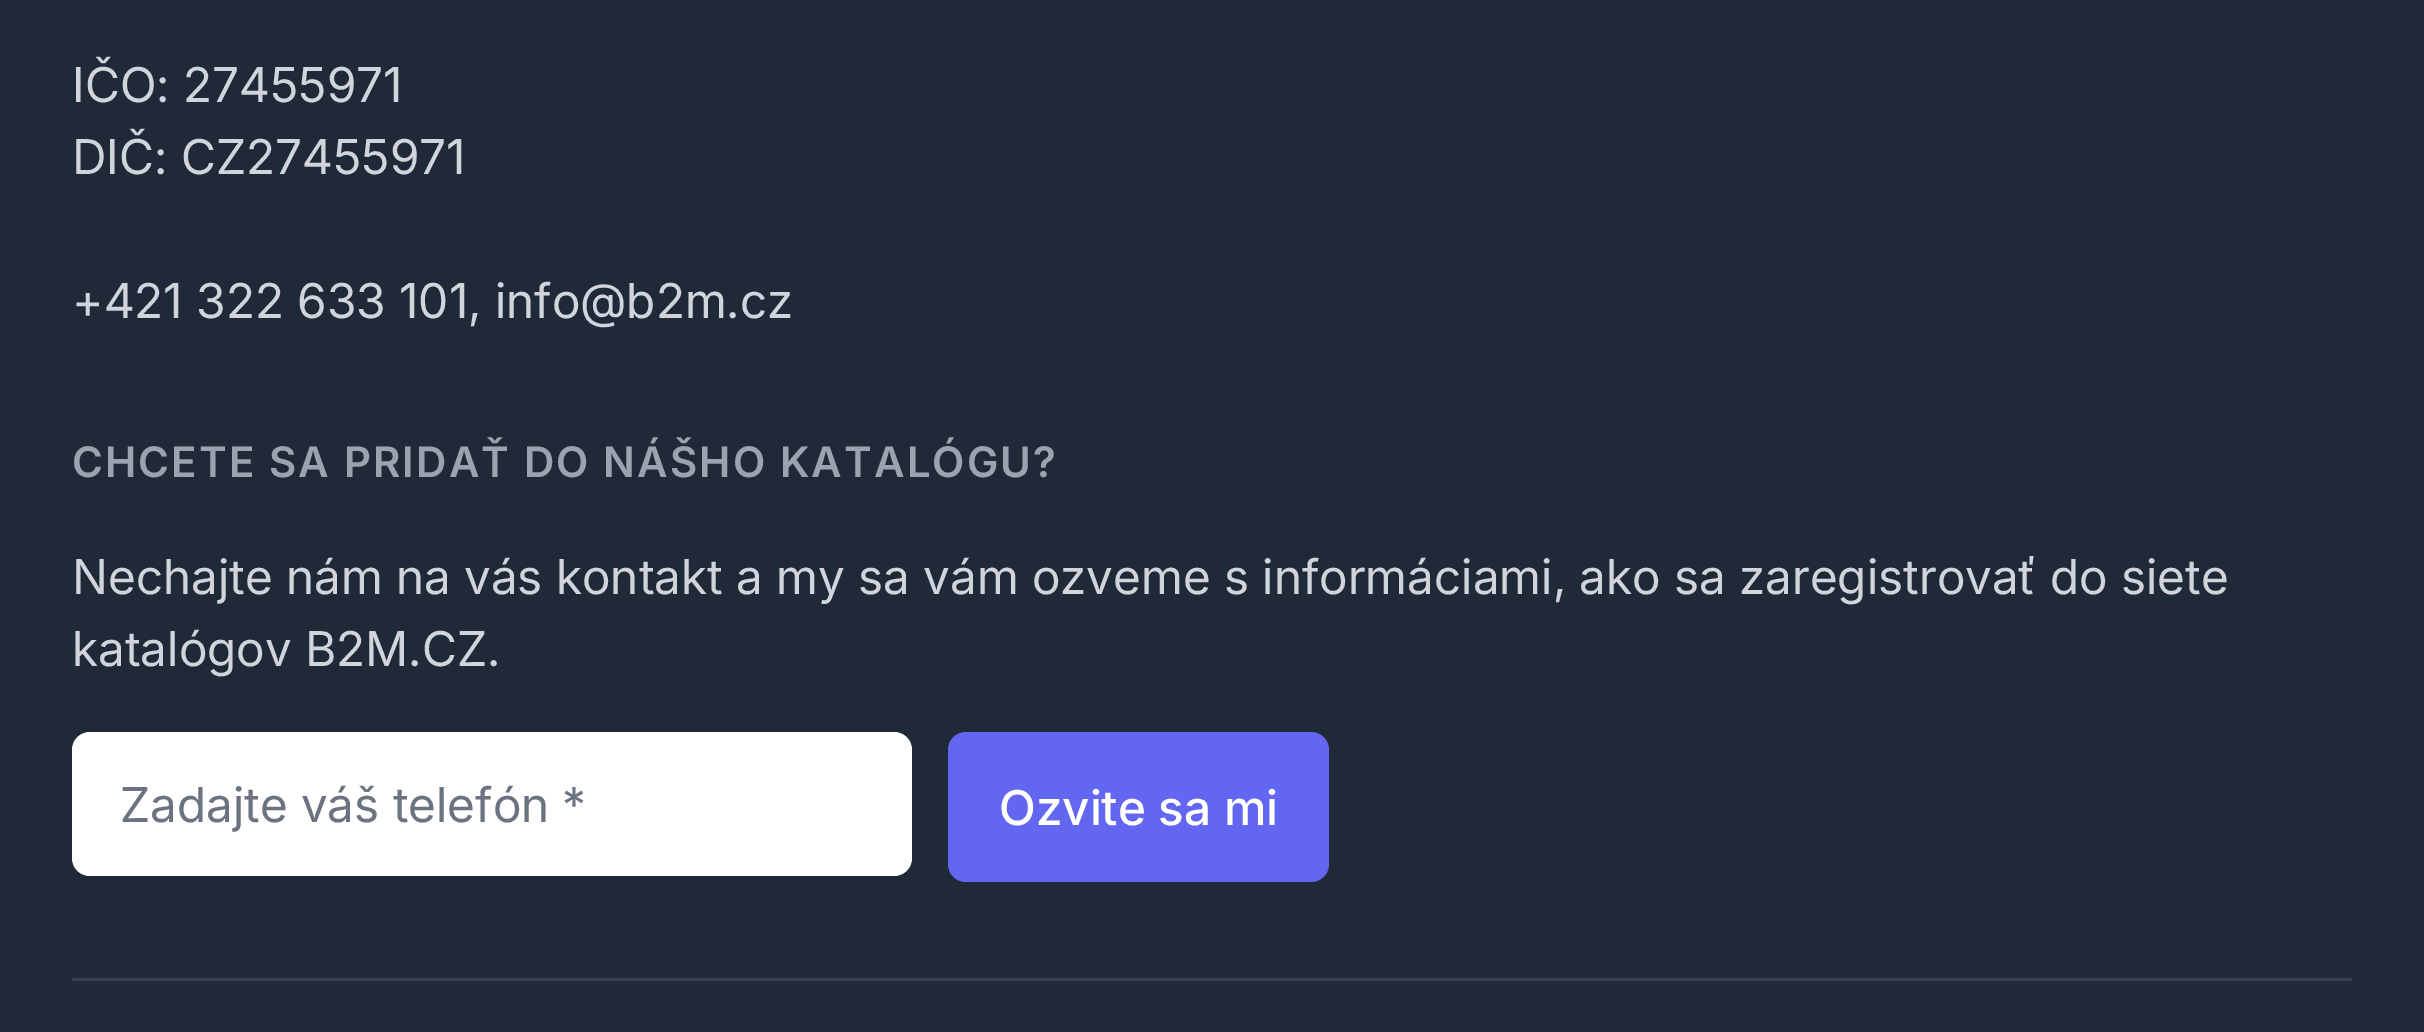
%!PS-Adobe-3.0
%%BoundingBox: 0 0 2424 1032
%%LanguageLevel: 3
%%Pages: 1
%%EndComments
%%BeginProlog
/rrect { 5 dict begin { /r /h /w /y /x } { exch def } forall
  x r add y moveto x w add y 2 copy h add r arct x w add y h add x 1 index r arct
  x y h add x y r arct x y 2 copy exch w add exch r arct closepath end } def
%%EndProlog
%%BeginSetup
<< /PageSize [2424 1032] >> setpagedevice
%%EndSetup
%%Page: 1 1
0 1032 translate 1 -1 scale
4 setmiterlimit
0.122 0.161 0.216 setrgbcolor
0 0 2424 1032 rectfill
1 setgray
72 732 840 144 18 rrect fill
0.388 0.4 0.945 setrgbcolor
948 732 381 150 18 rrect fill
0.216 0.255 0.318 setrgbcolor
72 978 2280 3 rectfill
/Inter-Regular [48 0 0 -48 0 0] selectfont
0.82 0.835 0.859 setrgbcolor
72 102 moveto (IČO: 27455971) show
72 174 moveto (DIČ: CZ27455971) show
72 318 moveto (+421 322 633 101, info@b2m.cz) show
/Inter-SemiBold [42 0 0 -42 0 0] selectfont
0.612 0.639 0.686 setrgbcolor
72 477 moveto 2.1 0 (CHCETE SA PRIDAŤ DO NÁŠHO KATALÓGU?) ashow
/Inter-Regular [48 0 0 -48 0 0] selectfont
0.82 0.835 0.859 setrgbcolor
72 594 moveto (Nechajte nám na vás kontakt a my sa vám ozveme s informáciami, ako sa zaregistrovať do siete) show
72 666 moveto (katalógov B2M.CZ.) show
0.42 0.447 0.502 setrgbcolor
120 822 moveto (Zadajte váš telefón *) show
/Inter-Medium [48 0 0 -48 0 0] selectfont
1 setgray
999 825 moveto (Ozvite sa mi) show
showpage
%%EOF
